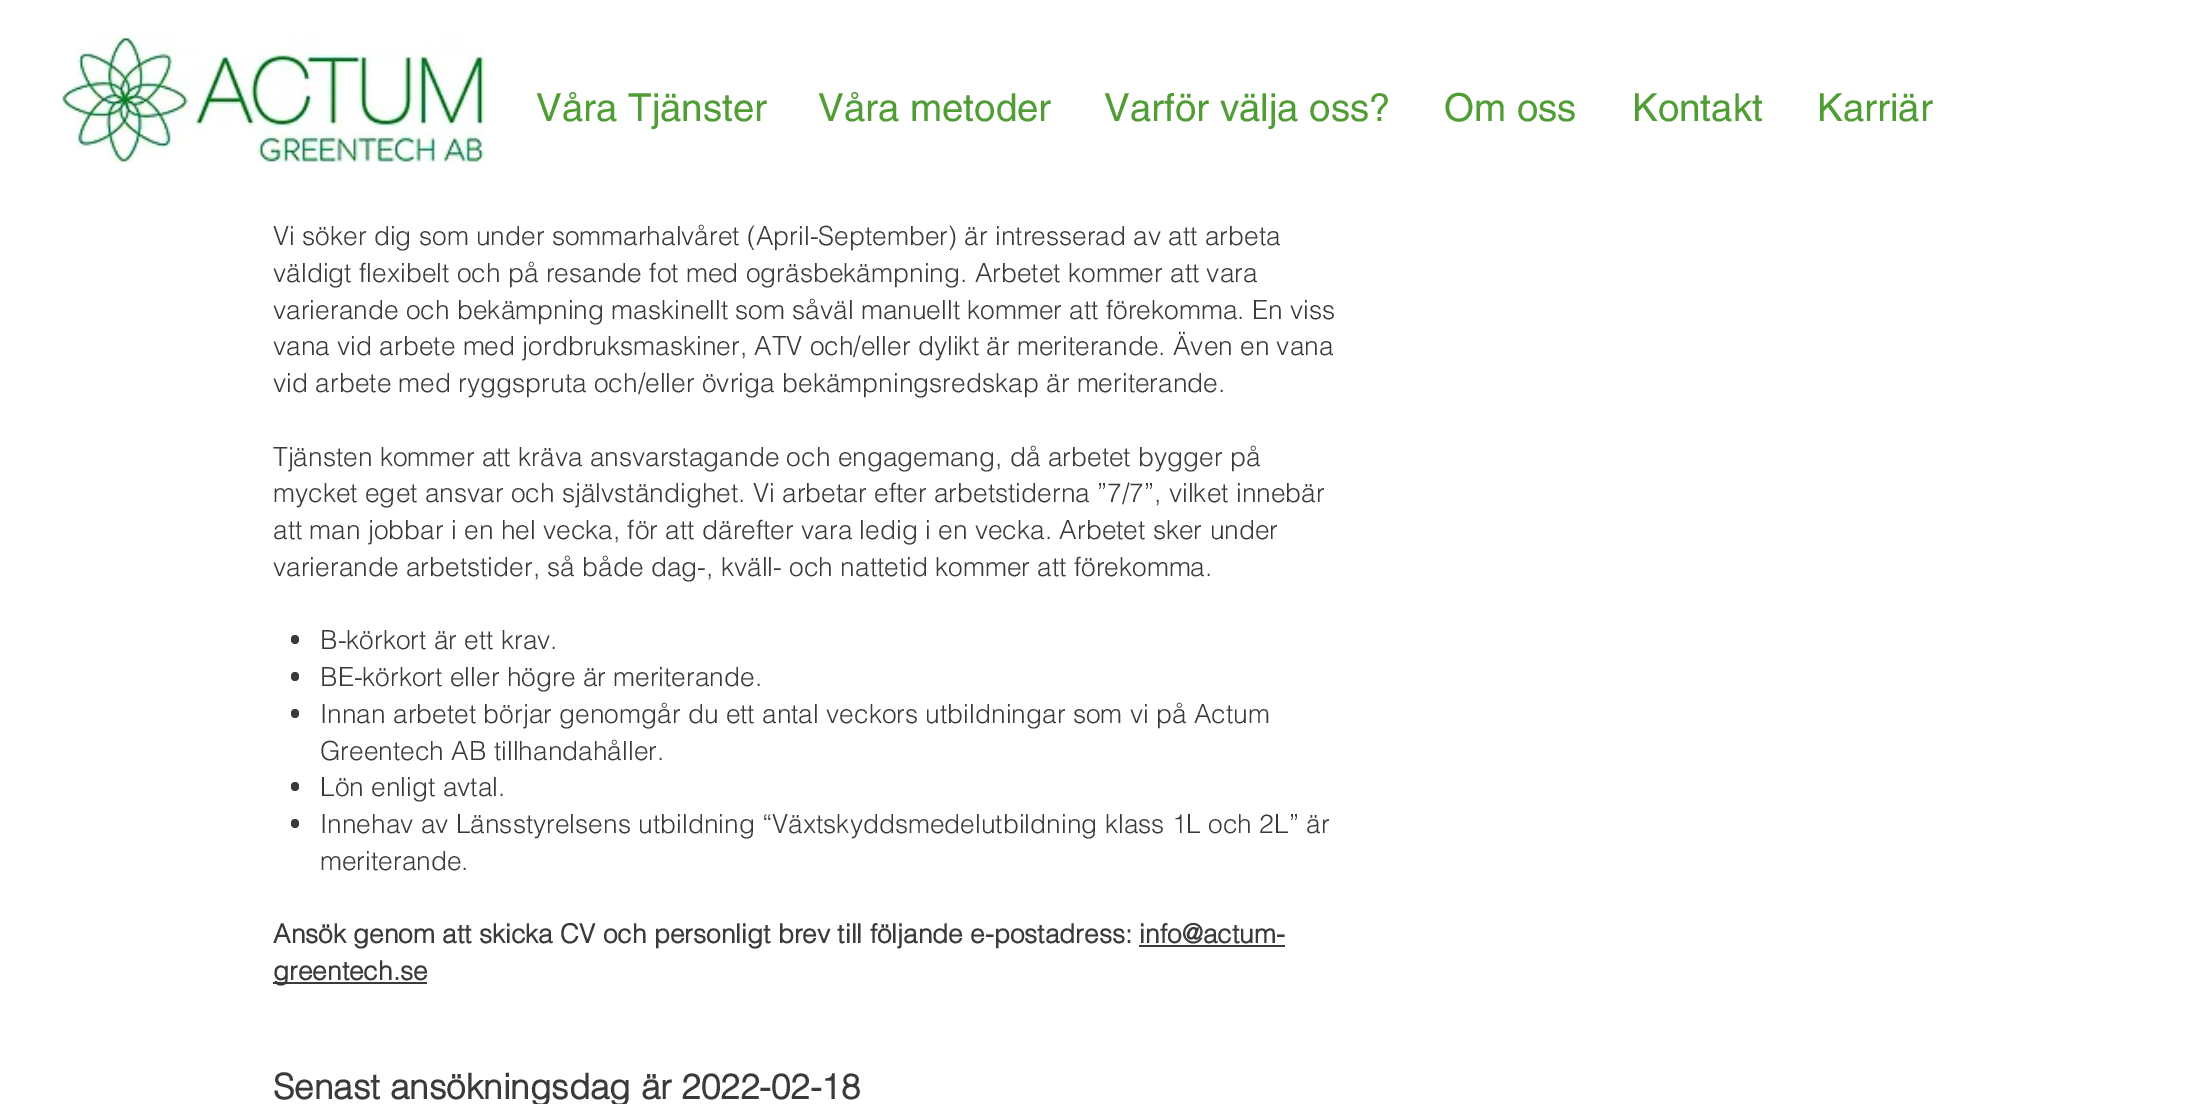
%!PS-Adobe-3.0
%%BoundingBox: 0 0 2205 1104
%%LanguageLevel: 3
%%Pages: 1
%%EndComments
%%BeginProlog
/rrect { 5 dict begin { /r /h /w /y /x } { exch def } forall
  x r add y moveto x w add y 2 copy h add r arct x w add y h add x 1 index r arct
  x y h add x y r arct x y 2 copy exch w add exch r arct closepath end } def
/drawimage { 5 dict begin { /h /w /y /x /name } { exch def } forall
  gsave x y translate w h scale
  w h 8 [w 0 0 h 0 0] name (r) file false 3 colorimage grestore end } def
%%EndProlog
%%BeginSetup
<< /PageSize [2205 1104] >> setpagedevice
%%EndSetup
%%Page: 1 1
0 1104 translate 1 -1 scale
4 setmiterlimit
1 setgray
0 0 2205 1104 rectfill
(images/1.raw) 60 35 425 128 drawimage
0.231 0.227 0.227 setrgbcolor
291 635 8 9 4 rrect fill
291 672 8 9 4 rrect fill
291 709 8 9 4 rrect fill
291 782 8 9 4 rrect fill
291 819 8 9 4 rrect fill
1139 945 146 2 rectfill
273 982 154 2 rectfill
/helvetica-Regular [38.5 0 0 -38.5 0 0] selectfont
0.314 0.612 0.208 setrgbcolor
536 121 moveto (Våra Tjänster) show
818 121 moveto (Våra metoder) show
1104 121 moveto (Varför välja oss?) show
1444 121 moveto (Om oss) show
1632 121 moveto (Kontakt) show
1817 121 moveto (Karriär) show
/helvetica-Light [26.25 0 0 -26.25 0 0] selectfont
0.231 0.227 0.227 setrgbcolor
273 245 moveto (Vi söker dig som under sommarhalvåret \(April-September\) är intresserad av att arbeta) show
273 282 moveto (väldigt flexibelt och på resande fot med ogräsbekämpning. Arbetet kommer att vara) show
273 319 moveto (varierande och bekämpning maskinellt som såväl manuellt kommer att förekomma. En viss) show
273 355 moveto (vana vid arbete med jordbruksmaskiner, ATV och/eller dylikt är meriterande. Även en vana) show
273 392 moveto (vid arbete med ryggspruta och/eller övriga bekämpningsredskap är meriterande.) show
273 466 moveto (Tjänsten kommer att kräva ansvarstagande och engagemang, då arbetet bygger på) show
273 502 moveto (mycket eget ansvar och självständighet. Vi arbetar efter arbetstiderna ”7/7”, vilket innebär) show
273 539 moveto (att man jobbar i en hel vecka, för att därefter vara ledig i en vecka. Arbetet sker under) show
273 576 moveto (varierande arbetstider, så både dag-, kväll- och nattetid kommer att förekomma.) show
320 649 moveto (B-körkort är ett krav.) show
320 686 moveto (BE-körkort eller högre är meriterande.) show
320 723 moveto (Innan arbetet börjar genomgår du ett antal veckors utbildningar som vi på Actum) show
320 760 moveto (Greentech AB tillhandahåller.) show
320 796 moveto (Lön enligt avtal.) show
320 833 moveto (Innehav av Länsstyrelsens utbildning “Växtskyddsmedelutbildning klass 1L och 2L” är) show
320 870 moveto (meriterande.) show
/helvetica-Bold [26.25 0 0 -26.25 0 0] selectfont
273 943 moveto (Ansök genom att skicka CV och personligt brev till följande e-postadress: info@actum-) show
273 980 moveto (greentech.se) show
/helvetica-Bold [35 0 0 -35 0 0] selectfont
273 1099 moveto (Senast ansökningsdag är 2022-02-18) show
showpage
%%EOF
